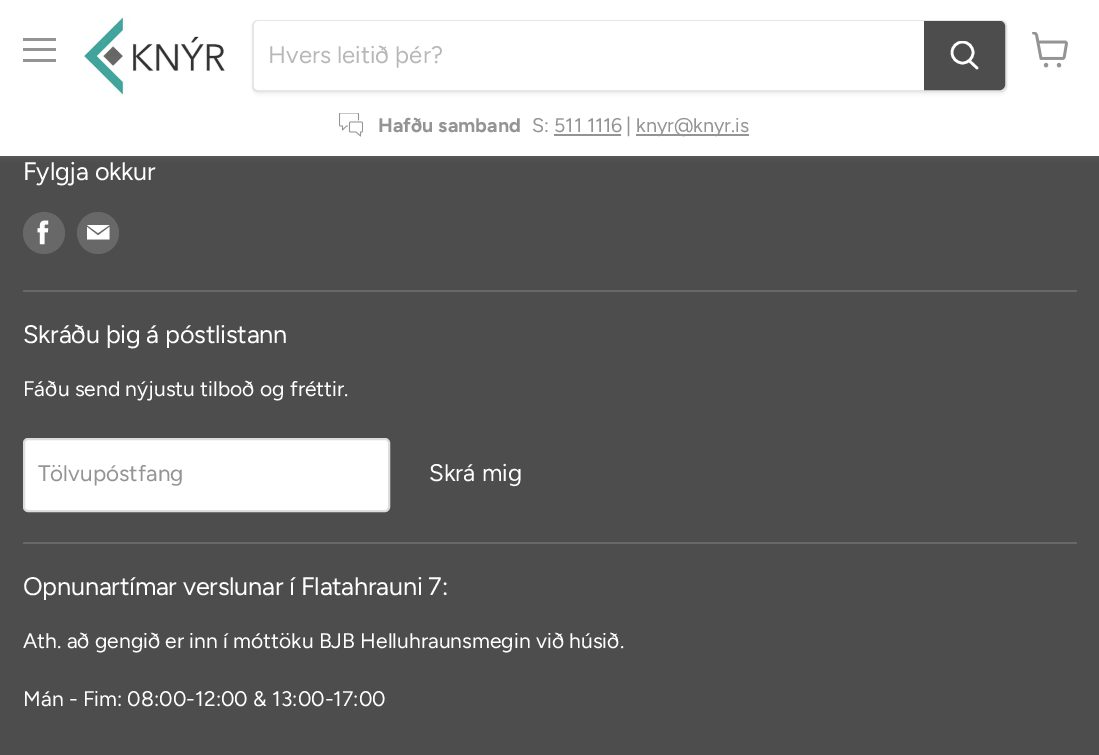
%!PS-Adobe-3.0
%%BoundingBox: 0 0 1099 755
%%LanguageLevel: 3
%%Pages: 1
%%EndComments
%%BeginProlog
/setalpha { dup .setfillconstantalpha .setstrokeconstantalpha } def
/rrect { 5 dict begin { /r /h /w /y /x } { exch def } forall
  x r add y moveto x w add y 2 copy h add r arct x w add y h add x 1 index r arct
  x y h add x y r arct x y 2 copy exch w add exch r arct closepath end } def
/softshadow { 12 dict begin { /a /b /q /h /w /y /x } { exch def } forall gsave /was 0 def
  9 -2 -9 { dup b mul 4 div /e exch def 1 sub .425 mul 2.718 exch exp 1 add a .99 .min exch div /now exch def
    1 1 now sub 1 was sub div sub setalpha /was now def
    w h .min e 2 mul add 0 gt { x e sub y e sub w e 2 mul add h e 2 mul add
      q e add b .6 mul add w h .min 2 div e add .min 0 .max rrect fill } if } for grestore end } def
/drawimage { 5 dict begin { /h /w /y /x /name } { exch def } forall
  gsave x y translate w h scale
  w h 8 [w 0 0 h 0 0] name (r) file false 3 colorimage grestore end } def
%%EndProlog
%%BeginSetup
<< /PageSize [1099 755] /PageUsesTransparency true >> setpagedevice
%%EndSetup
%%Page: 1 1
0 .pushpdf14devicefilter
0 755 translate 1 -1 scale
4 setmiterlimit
0.302 setgray
0 0 1099 755 rectfill
0.502 setgray
0 2 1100 156 0 3 0.25 softshadow
1 setgray
0 0 1099 156 rectfill
0.58 setgray
23 38 33 3 rectfill
23 48 33 3 rectfill
23 59 33 3 rectfill
(images/1.raw) 84 17 141 79 drawimage
gsave
newpath 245 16 moveto 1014 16 lineto 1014 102 lineto 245 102 lineto closepath 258 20 moveto 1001 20 lineto 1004.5 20 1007 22.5 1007 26 curveto 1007 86 lineto 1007 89.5 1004.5 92 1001 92 curveto 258 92 lineto 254.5 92 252 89.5 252 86 curveto 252 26 lineto 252 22.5 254.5 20 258 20 curveto closepath eoclip newpath
0.502 setgray
252 23 755 72 6 2 0.11 softshadow
grestore
0.2 setalpha
0.502 setgray
2 setlinewidth
253 21 753 70 5 rrect stroke
1 setalpha
1 setgray
newpath 259 21 moveto 924 21 lineto 924 90 lineto 259 90 lineto 256 90 254 88 254 85 curveto 254 26 lineto 254 23 256 21 259 21 curveto closepath fill
0.302 setgray
newpath 925 22 moveto 1000 22 lineto 1002 22 1004 24 1004 26 curveto 1004 85 lineto 1004 87 1002 89 1000 89 curveto 925 89 lineto closepath gsave fill grestore
stroke
1 setgray
2.6 setlinewidth
1 setlinecap
newpath 977 68 moveto 969.5 61 lineto stroke
gsave
950 41 30 31 rectclip
0 setlinecap
newpath 962.5 52.5 10.5 0 360 arc closepath stroke
grestore
(images/2.raw) 339 113 24 24 drawimage
0.58 setgray
554 134 67 2 rectfill
636 134 113 2 rectfill
(images/3.raw) 1032 32 36 36 drawimage
0.408 setgray
23 290 1054 2 rectfill
newpath 44 233 21 0 360 arc closepath fill
(images/4.raw) 37 220 12 25 drawimage
newpath 98 233 21 0 360 arc closepath fill
1 setgray
newpath 109.5 225 moveto 87 225 lineto 98 233 lineto closepath 98 235.5 moveto 87 227 lineto 87 239.5 lineto 109.5 239.5 lineto 109.5 227 lineto closepath eofill
0.408 setgray
23 542 1054 2 rectfill
1 setgray
24 439 365 72 4 rrect gsave fill grestore
0.867 setgray
2 setlinewidth
0 setlinecap
stroke
/Figtree-Regular [24 0 0 -24 0 0] selectfont
0.722 setgray
268 63 moveto (Hvers leitið þér?) show
/Figtree-Bold [19.75 0 0 -19.75 0 0] selectfont
0.58 setgray
378 132 moveto (Hafðu samband) show
/Figtree-Regular [19.75 0 0 -19.75 0 0] selectfont
532 132 moveto (S: 511 1116) show
626 132 moveto (|) show
636 132 moveto (knyr@knyr.is) show
/Figtree-Regular [25.3 0 0 -25.3 0 0] selectfont
1 setgray
23 180 moveto -0.25 0 (Fylgja okkur) ashow
23 343 moveto -0.25 0 (Skráðu þig á póstlistann) ashow
/Figtree-Regular [21.1 0 0 -21.1 0 0] selectfont
23 396 moveto (Fáðu send nýjustu tilboð og fréttir.) show
/Figtree-Regular [22.5 0 0 -22.5 0 0] selectfont
0.58 setgray
38 481 moveto (Tölvupóstfang) show
/Figtree-Regular [24 0 0 -24 0 0] selectfont
1 setgray
429 481 moveto (Skrá mig) show
/Figtree-Regular [25.3 0 0 -25.3 0 0] selectfont
23 595 moveto -0.25 0 (Opnunartímar verslunar í Flatahrauni 7:) ashow
/Figtree-Regular [21.1 0 0 -21.1 0 0] selectfont
23 648 moveto (Ath. að gengið er inn í móttöku BJB Helluhraunsmegin við húsið.) show
23 706 moveto (Mán - Fim: 08:00-12:00 & 13:00-17:00) show
.poppdf14devicefilter showpage
%%EOF
